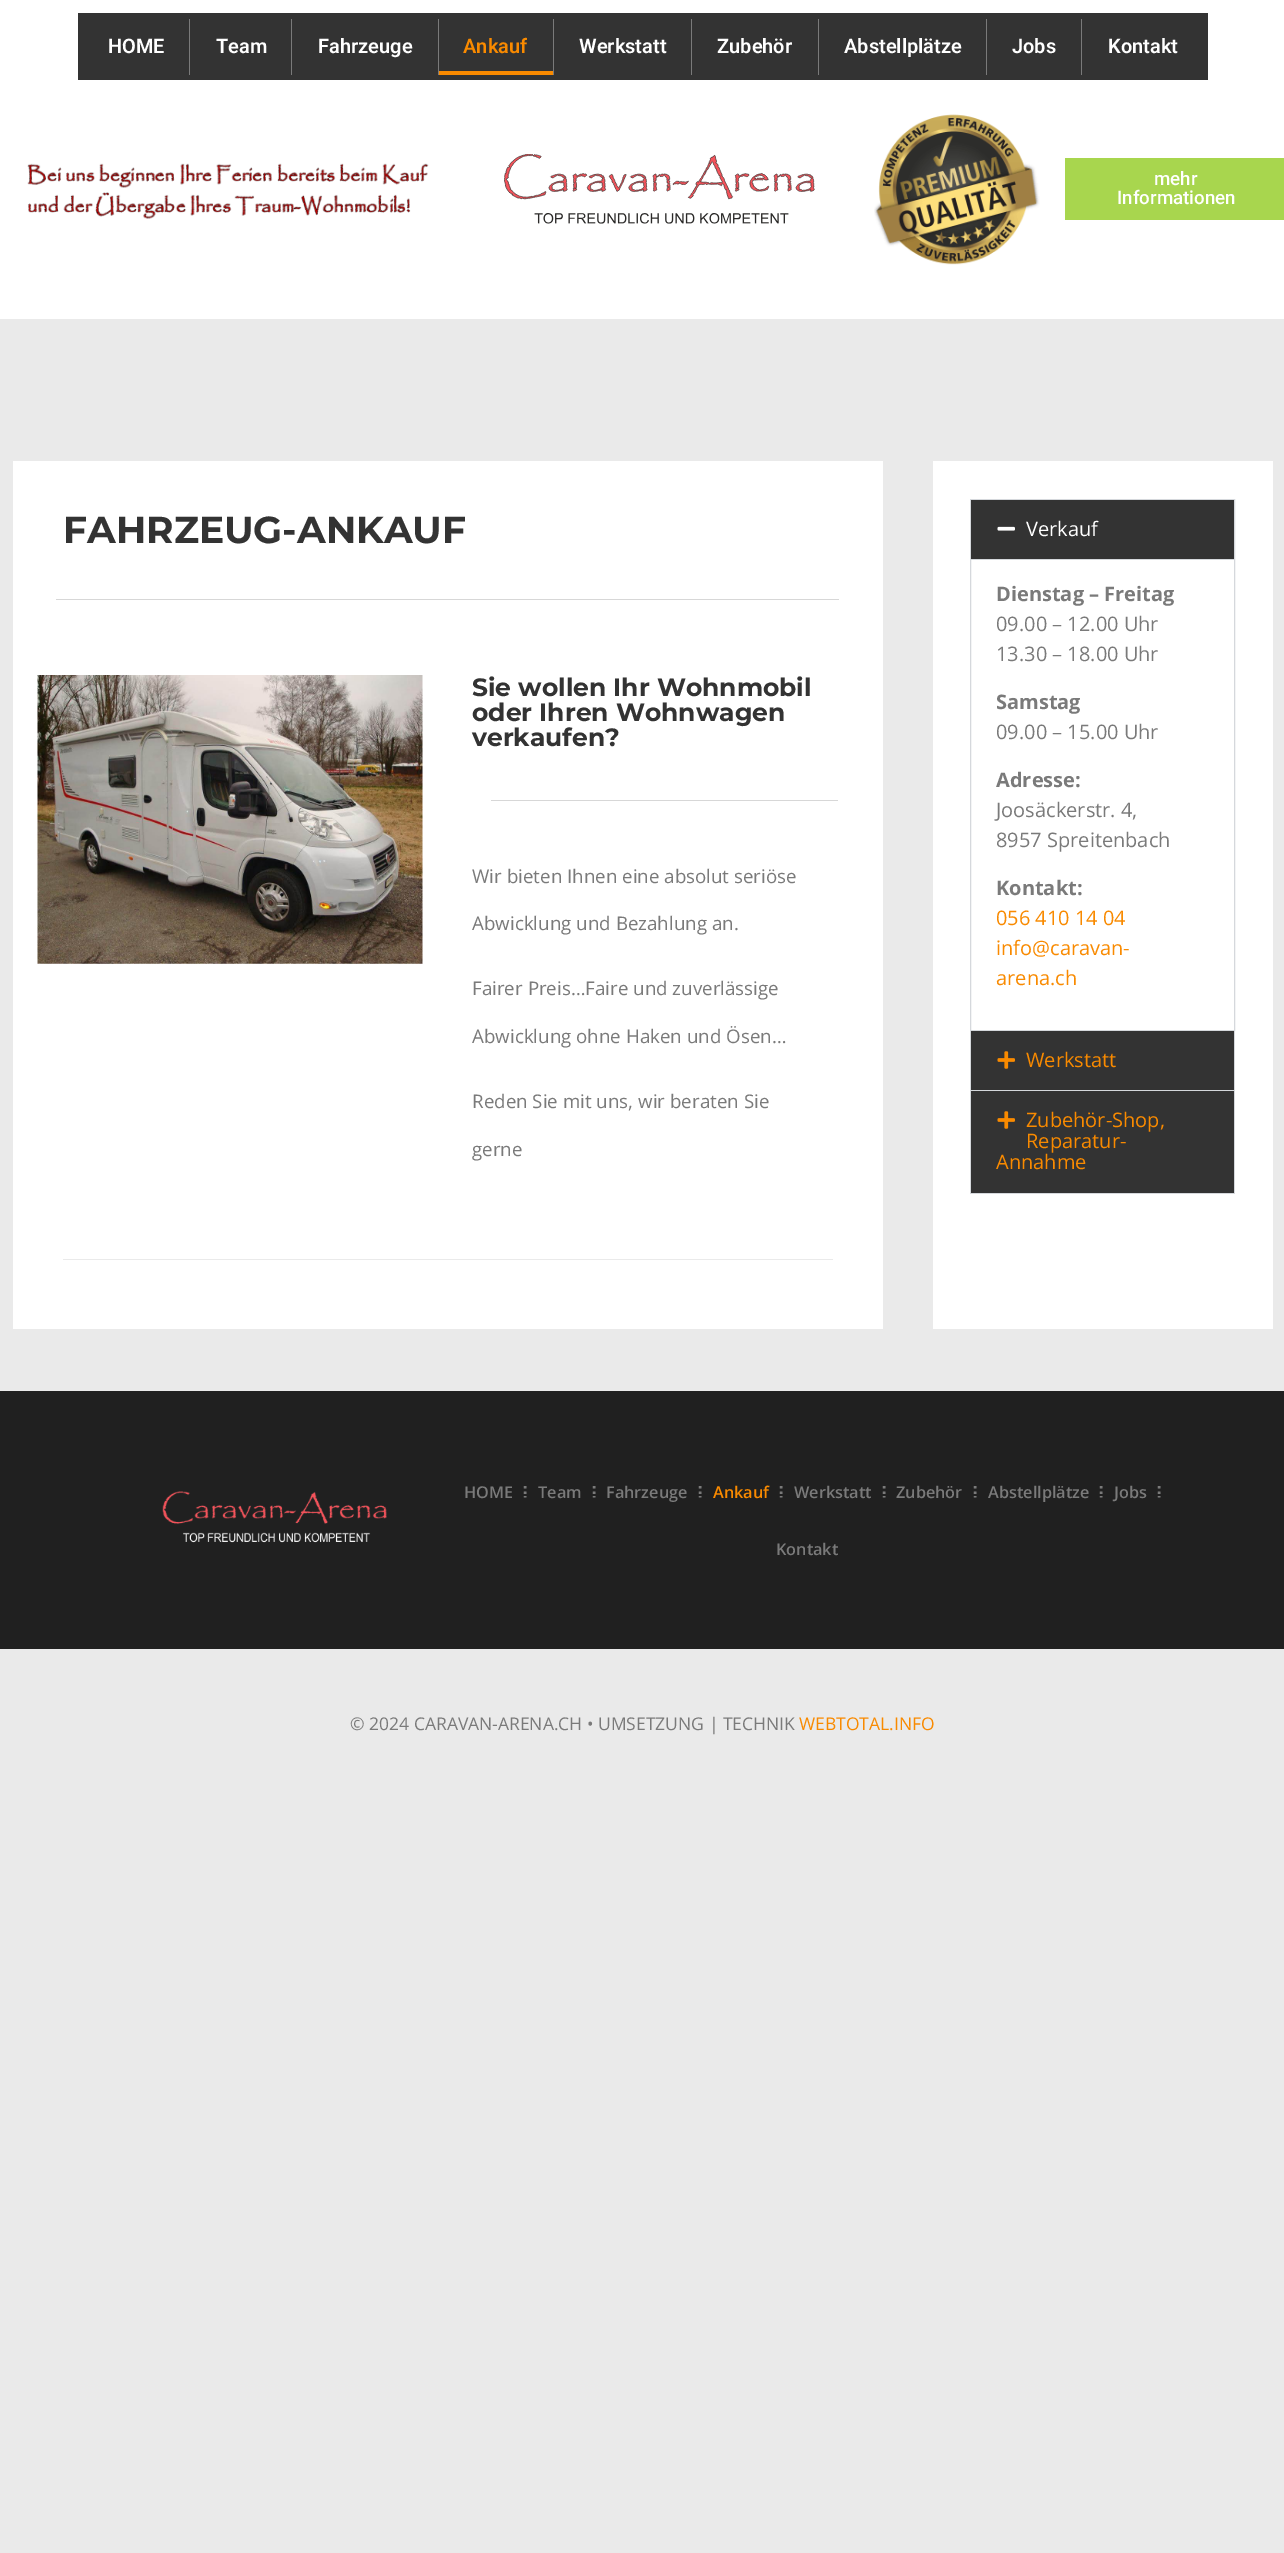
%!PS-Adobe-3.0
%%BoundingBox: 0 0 1284 2553
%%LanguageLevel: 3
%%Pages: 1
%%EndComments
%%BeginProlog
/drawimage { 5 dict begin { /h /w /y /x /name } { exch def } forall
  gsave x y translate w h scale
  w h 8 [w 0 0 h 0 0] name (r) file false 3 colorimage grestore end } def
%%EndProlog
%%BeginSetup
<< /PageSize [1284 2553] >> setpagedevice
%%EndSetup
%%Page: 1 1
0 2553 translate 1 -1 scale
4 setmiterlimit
0.918 setgray
0 0 1284 2553 rectfill
1 setgray
0 0 1284 319 rectfill
0.2 setgray
78 13 1130 67 rectfill
0.478 setgray
189 19 1 56 rectfill
291 19 1 56 rectfill
438 19 1 56 rectfill
0.976 0.541 0 setrgbcolor
439 71 114 4 rectfill
0.478 setgray
553 19 1 56 rectfill
691 19 1 56 rectfill
818 19 1 56 rectfill
986 19 1 56 rectfill
1081 19 1 56 rectfill
(images/1.raw) 27 163 402 56 drawimage
(images/2.raw) 504 154 311 70 drawimage
(images/3.raw) 874 114 166 151 drawimage
0.659 0.839 0.306 setrgbcolor
1065 158 219 62 rectfill
1 setgray
13 461 870 868 rectfill
0.843 setgray
56 599 783 1 rectfill
(images/4.raw) 37 675 386 289 drawimage
491 800 347 1 rectfill
0.918 setgray
63 1259 770 1 rectfill
1 setgray
933 461 340 868 rectfill
0.835 0.847 0.863 setrgbcolor
970.5 499.5 264 531 rectstroke
0.2 setgray
971 500 263 59 rectfill
(images/5.raw) 997 526 18 5 drawimage
0.835 0.847 0.863 setrgbcolor
971 559 263 1 rectfill
1234 1031 1 163 rectfill
970 1090 265 1 rectfill
970 1031 1 60 rectfill
0.2 setgray
971 1031 263 59 rectfill
(images/6.raw) 997 1051 18 18 drawimage
0.835 0.847 0.863 setrgbcolor
970 1193 265 1 rectfill
970 1091 1 103 rectfill
0.2 setgray
971 1091 263 102 rectfill
(images/6.raw) 997 1111 18 18 drawimage
0.125 setgray
0 1391 1284 258 rectfill
(images/7.raw) 162 1491 225 52 drawimage
0.478 setgray
2.5 setlinewidth
newpath 525 1486 moveto 525 1488.5 lineto 525 1491.5 moveto 525 1494 lineto 525 1496 moveto 525 1497.5 lineto stroke
newpath 594 1486 moveto 594 1488.5 lineto 594 1491.5 moveto 594 1494 lineto 594 1496 moveto 594 1497.5 lineto stroke
newpath 700 1486 moveto 700 1488.5 lineto 700 1491.5 moveto 700 1494 lineto 700 1496 moveto 700 1497.5 lineto stroke
newpath 781 1486 moveto 781 1488.5 lineto 781 1491.5 moveto 781 1494 lineto 781 1496 moveto 781 1497.5 lineto stroke
newpath 884 1486 moveto 884 1488.5 lineto 884 1491.5 moveto 884 1494 lineto 884 1496 moveto 884 1497.5 lineto stroke
newpath 975 1486 moveto 975 1488.5 lineto 975 1491.5 moveto 975 1494 lineto 975 1496 moveto 975 1497.5 lineto stroke
newpath 1101 1486 moveto 1101 1488.5 lineto 1101 1491.5 moveto 1101 1494 lineto 1101 1496 moveto 1101 1497.5 lineto stroke
newpath 1159 1486 moveto 1159 1488.5 lineto 1159 1491.5 moveto 1159 1494 lineto 1159 1496 moveto 1159 1497.5 lineto stroke
/Roboto-SemiBold [20 0 0 -20 0 0] selectfont
1 setgray
108 53 moveto (HOME) show
216 53 moveto (Team) show
318 53 moveto (Fahrzeuge) show
0.976 0.541 0 setrgbcolor
463 53 moveto (Ankauf) show
1 setgray
579 53 moveto (Werkstatt) show
717 53 moveto (Zubehör) show
844 53 moveto (Abstellplätze) show
1012 53 moveto (Jobs) show
1108 53 moveto (Kontakt) show
/Roboto-Medium [18.75 0 0 -18.75 0 0] selectfont
1154 185 moveto (mehr) show
1117 204 moveto (Informationen) show
/Montserrat-Bold [37.5 0 0 -37.5 0 0] selectfont
0.2 setgray
63 543 moveto (FAHRZEUG-ANKAUF) show
/Montserrat-Bold [25 0 0 -25 0 0] selectfont
472 696 moveto (Sie wollen Ihr Wohnmobil) show
472 721 moveto (oder Ihren Wohnwagen) show
472 746 moveto (verkaufen?) show
/OpenSans-Regular [18.75 0 0 -18.75 0 0] selectfont
0.478 setgray
472 883 moveto (Wir bieten Ihnen eine absolut seriöse) show
472 930 moveto (Abwicklung und Bezahlung an.) show
472 995 moveto (Fairer Preis…Faire und zuverlässige) show
472 1043 moveto (Abwicklung ohne Haken und Ösen…) show
472 1108 moveto (Reden Sie mit uns, wir beraten Sie) show
472 1156 moveto (gerne) show
/OpenSans-Regular [20 0 0 -20 0 0] selectfont
1 setgray
1026 536 moveto (Verkauf) show
/OpenSans-Bold [20 0 0 -20 0 0] selectfont
0.478 setgray
996 601 moveto (Dienstag – Freitag) show
/OpenSans-Regular [20 0 0 -20 0 0] selectfont
996 631 moveto (09.00 – 12.00 Uhr) show
996 661 moveto (13.30 – 18.00 Uhr) show
/OpenSans-Bold [20 0 0 -20 0 0] selectfont
996 709 moveto (Samstag) show
/OpenSans-Regular [20 0 0 -20 0 0] selectfont
996 739 moveto (09.00 – 15.00 Uhr) show
/OpenSans-Bold [20 0 0 -20 0 0] selectfont
996 787 moveto (Adresse:) show
/OpenSans-Regular [20 0 0 -20 0 0] selectfont
996 817 moveto (Joosäckerstr. 4,) show
996 847 moveto (8957 Spreitenbach) show
/OpenSans-Bold [20 0 0 -20 0 0] selectfont
996 895 moveto (Kontakt:) show
/OpenSans-Regular [20 0 0 -20 0 0] selectfont
0.976 0.541 0 setrgbcolor
996 925 moveto (056 410 14 04) show
996 955 moveto (info@caravan-) show
996 985 moveto (arena.ch) show
1026 1067 moveto (Werkstatt) show
1026 1127 moveto (Zubehör-Shop,) show
1026 1148 moveto (Reparatur-) show
996 1169 moveto (Annahme) show
/OpenSans-SemiBold [16.25 0 0 -16.25 0 0] selectfont
0.478 setgray
464 1498 moveto (HOME) show
538 1498 moveto (Team) show
606 1498 moveto (Fahrzeuge) show
0.976 0.541 0 setrgbcolor
713 1498 moveto (Ankauf) show
0.478 setgray
794 1498 moveto (Werkstatt) show
896 1498 moveto (Zubehör) show
988 1498 moveto (Abstellplätze) show
1114 1498 moveto (Jobs) show
776 1555 moveto (Kontakt) show
/OpenSans-Regular [17.5 0 0 -17.5 0 0] selectfont
350 1730 moveto (© 2024 CARAVAN-ARENA.CH • UMSETZUNG | TECHNIK) show
0.976 0.541 0 setrgbcolor
799 1730 moveto (WEBTOTAL.INFO) show
showpage
%%EOF
